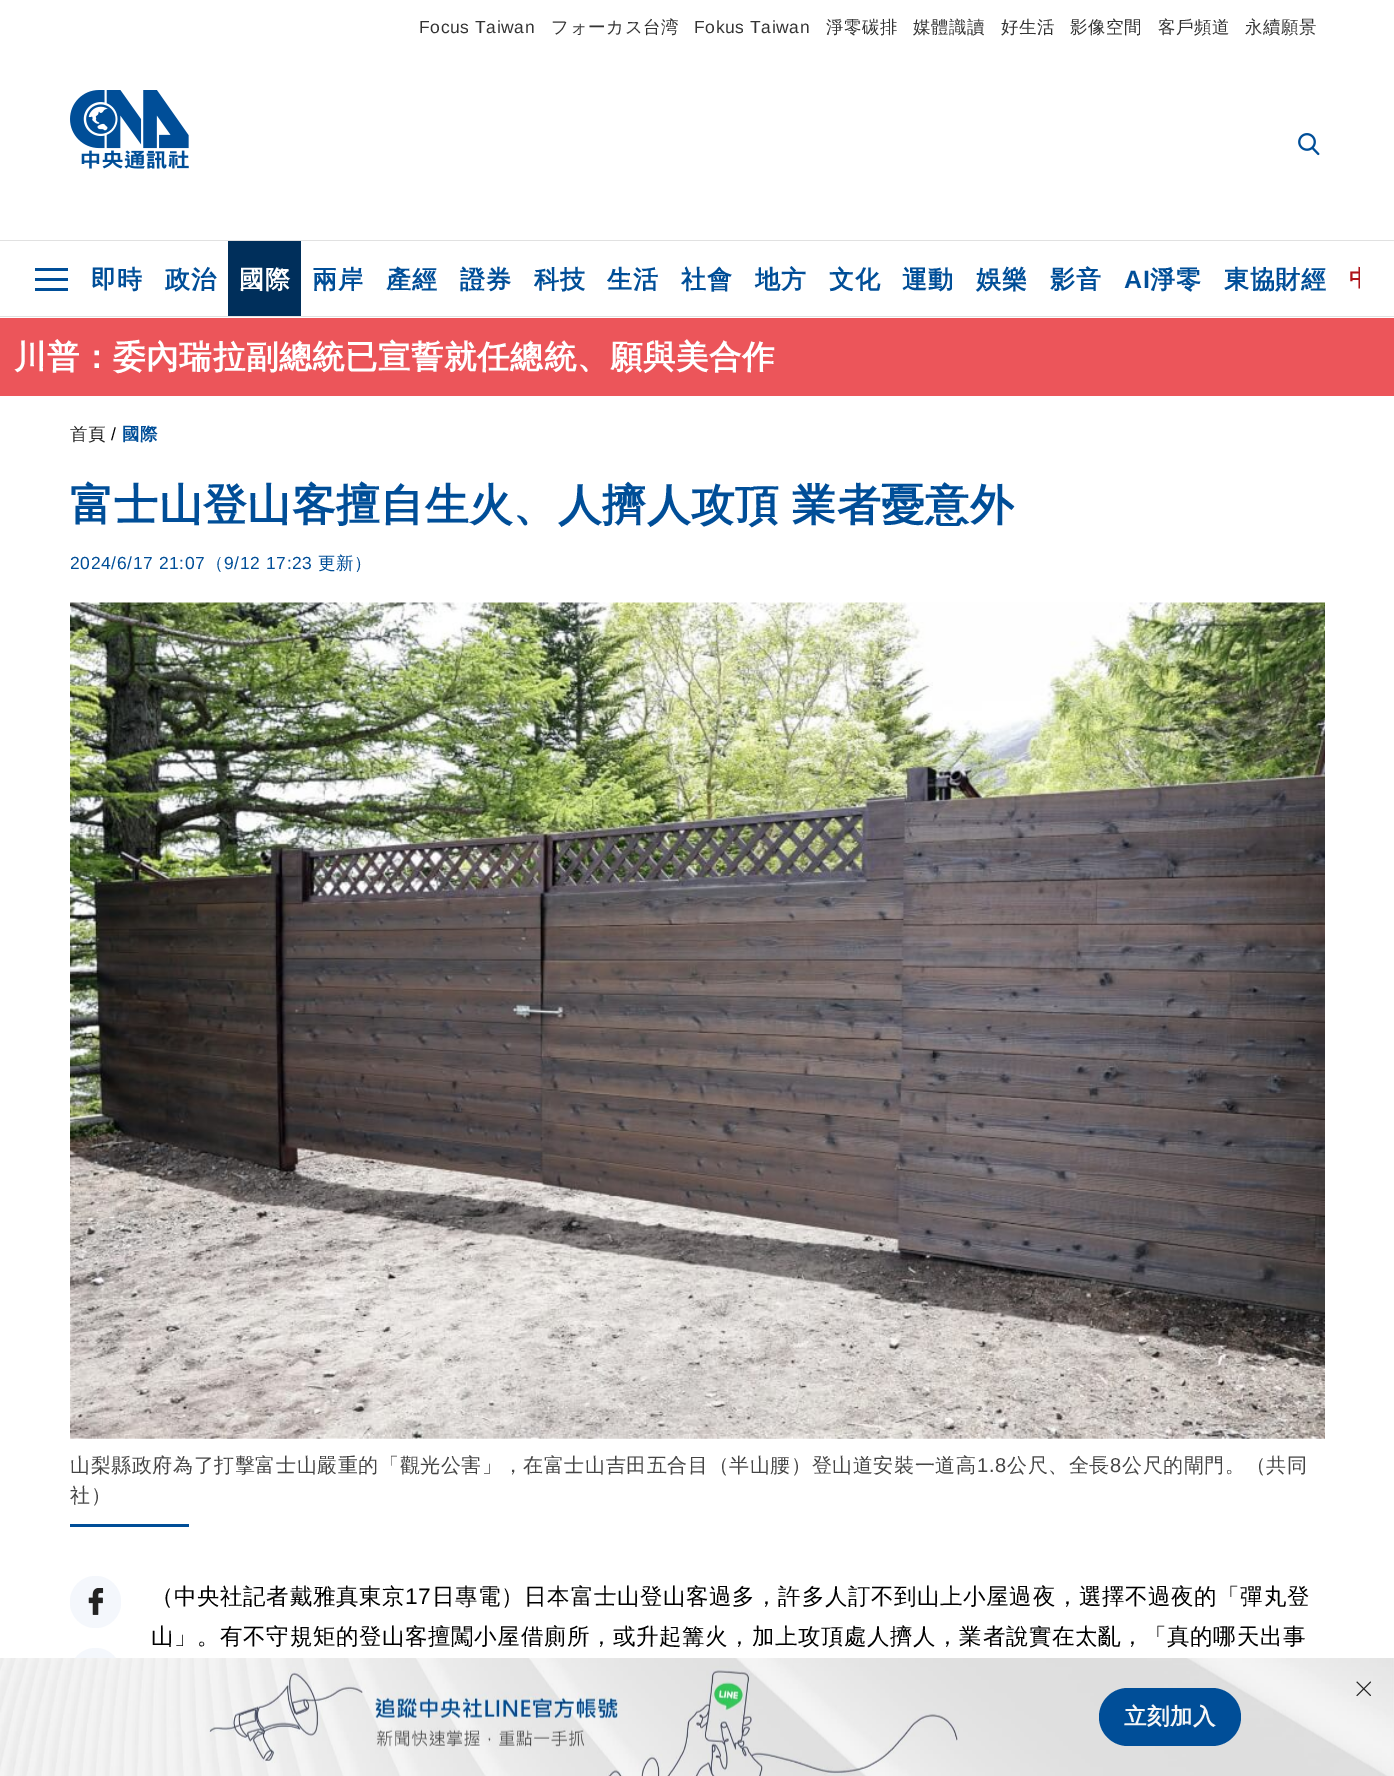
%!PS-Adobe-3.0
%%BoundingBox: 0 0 1394 1776
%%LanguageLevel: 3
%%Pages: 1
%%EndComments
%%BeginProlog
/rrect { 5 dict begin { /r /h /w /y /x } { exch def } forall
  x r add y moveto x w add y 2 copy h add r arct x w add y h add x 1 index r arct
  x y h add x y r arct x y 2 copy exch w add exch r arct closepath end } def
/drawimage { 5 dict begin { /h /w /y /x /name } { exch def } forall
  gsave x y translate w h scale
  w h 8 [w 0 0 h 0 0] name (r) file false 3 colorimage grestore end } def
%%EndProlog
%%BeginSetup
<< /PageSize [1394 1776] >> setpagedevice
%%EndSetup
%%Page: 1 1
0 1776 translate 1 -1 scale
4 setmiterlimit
1 setgray
0 0 1394 1776 rectfill
(images/1.raw) 70 90 119 79 drawimage
(images/2.raw) 1298 133 22 23 drawimage
0.957 0.969 0.988 setrgbcolor
newpath 95.5 1673.5 25.5 0 360 arc closepath fill
(images/3.raw) 0 1658 1394 118 drawimage
(images/4.raw) 1356 1681 15 15 drawimage
0 0.306 0.596 setrgbcolor
1099 1688 142 58 29 rrect fill
0.882 setgray
0 240 1394 1 rectfill
0 316 1394 1 rectfill
0 0.306 0.596 setrgbcolor
35 268 33 3 rectfill
35 278 33 3 rectfill
35 288 33 3 rectfill
0 0.184 0.357 setrgbcolor
228 241 73 75 rectfill
0.925 0.333 0.353 setrgbcolor
0 318 1394 78 rectfill
(images/5.raw) 70 602 1255 837 drawimage
0 0.306 0.596 setrgbcolor
70 1524 119 3 rectfill
0.957 0.969 0.988 setrgbcolor
70 1576 51 52 25.5 rrect fill
(images/6.raw) 88 1588 16 27 drawimage
/LiberationSans-Regular [17.5 0 0 -17.5 0 0] selectfont
0.2 setgray
419 33 moveto 0.6 0 (Focus Taiwan) ashow
/WenQuanYiZenHei-Medium [17.5 0 0 -17.5 0 0] selectfont
551 33 moveto 0.6 0 (フォーカス台湾) ashow
/LiberationSans-Regular [17.5 0 0 -17.5 0 0] selectfont
694 33 moveto 0.6 0 (Fokus Taiwan) ashow
/WenQuanYiZenHei-Medium [17.5 0 0 -17.5 0 0] selectfont
826 33 moveto 0.6 0 (淨零碳排) ashow
913 33 moveto 0.6 0 (媒體識讀) ashow
1001 33 moveto 0.6 0 (好生活) ashow
1070 33 moveto 0.6 0 (影像空間) ashow
1158 33 moveto 0.6 0 (客戶頻道) ashow
1245 33 moveto 0.6 0 (永續願景) ashow
/WenQuanYiZenHei-Bold [22.5 0 0 -22.5 0 0] selectfont
0.965 setgray
1124 1724 moveto 0.6 0 (立刻加入) ashow
/WenQuanYiZenHei-Bold [25 0 0 -25 0 0] selectfont
0 0.306 0.596 setrgbcolor
91 288 moveto 0.6 0 (即時) ashow
165 288 moveto 0.6 0 (政治) ashow
1 setgray
239 288 moveto 0.6 0 (國際) ashow
0 0.306 0.596 setrgbcolor
312 288 moveto 0.6 0 (兩岸) ashow
386 288 moveto 0.6 0 (產經) ashow
460 288 moveto 0.6 0 (證券) ashow
534 288 moveto 0.6 0 (科技) ashow
607 288 moveto 0.6 0 (生活) ashow
681 288 moveto 0.6 0 (社會) ashow
755 288 moveto 0.6 0 (地方) ashow
829 288 moveto 0.6 0 (文化) ashow
902 288 moveto 0.6 0 (運動) ashow
976 288 moveto 0.6 0 (娛樂) ashow
1050 288 moveto 0.6 0 (影音) ashow
/LiberationSans-Bold [25 0 0 -25 0 0] selectfont
1124 288 moveto 0.6 0 (AI) ashow
/WenQuanYiZenHei-Bold [25 0 0 -25 0 0] selectfont
1150 288 moveto 0.6 0 (淨零) ashow
1224 288 moveto 0.6 0 (東協財經) ashow
gsave
35 241 1325 75 rectclip
/WenQuanYiZenHei-Bold [22.5 0 0 -22.5 0 0] selectfont
0.682 0.075 0.098 setrgbcolor
1349 286 moveto 0.6 0 (中) ashow
grestore
/WenQuanYiZenHei-Bold [32.5 0 0 -32.5 0 0] selectfont
1 setgray
14 368 moveto 0.6 0 (川普：委內瑞拉副總統已宣誓就任總統、願與美合作) ashow
/WenQuanYiZenHei-Medium [17.5 0 0 -17.5 0 0] selectfont
0.137 setgray
70 440 moveto 0.6 0 (首頁) ashow
/LiberationSans-Regular [17.5 0 0 -17.5 0 0] selectfont
0 setgray
111 440 moveto 0.6 0 (/) ashow
/WenQuanYiZenHei-Bold [17.5 0 0 -17.5 0 0] selectfont
0 0.306 0.596 setrgbcolor
122 440 moveto 0.6 0 (國際) ashow
/WenQuanYiZenHei-Bold [43.75 0 0 -43.75 0 0] selectfont
70 520 moveto -1 0 32 0.6 0 (富士山登山客擅自生火、人擠人攻頂 業者憂意外) awidthshow
/LiberationSans-Regular [17.5 0 0 -17.5 0 0] selectfont
70 569 moveto 0.6 0 (2024/6/17 21:07) ashow
/WenQuanYiZenHei-Medium [17.5 0 0 -17.5 0 0] selectfont
206 569 moveto 0.6 0 (（) ashow
/LiberationSans-Regular [17.5 0 0 -17.5 0 0] selectfont
224 569 moveto 0.6 0 (9/12 17:23) ashow
/WenQuanYiZenHei-Medium [17.5 0 0 -17.5 0 0] selectfont
318 569 moveto 0.6 0 (更新）) ashow
/WenQuanYiZenHei-Medium [20 0 0 -20 0 0] selectfont
0.271 setgray
70 1472 moveto 0.6 0 (山梨縣政府為了打擊富士山嚴重的「觀光公害」，在富士山吉田五合目（半山腰）登山道安裝一道高) ashow
/LiberationSans-Regular [20 0 0 -20 0 0] selectfont
977 1472 moveto 0.6 0 (1.8) ashow
/WenQuanYiZenHei-Medium [20 0 0 -20 0 0] selectfont
1007 1472 moveto 0.6 0 (公尺、全長) ashow
/LiberationSans-Regular [20 0 0 -20 0 0] selectfont
1110 1472 moveto 0.6 0 (8) ashow
/WenQuanYiZenHei-Medium [20 0 0 -20 0 0] selectfont
1122 1472 moveto 0.6 0 (公尺的閘門。（共同) ashow
70 1502 moveto 0.6 0 (社）) ashow
/WenQuanYiZenHei-Medium [22.5 0 0 -22.5 0 0] selectfont
0 setgray
151 1604 moveto 0.6 0 (（中央社記者戴雅真東京) ashow
/LiberationSans-Regular [22.5 0 0 -22.5 0 0] selectfont
405 1604 moveto 0.6 0 (17) ashow
/WenQuanYiZenHei-Medium [22.5 0 0 -22.5 0 0] selectfont
432 1604 moveto 0.6 0 (日專電）日本富士山登山客過多，許多人訂不到山上小屋過夜，選擇不過夜的「彈丸登) ashow
151 1644 moveto 0.6 0 (山」。有不守規矩的登山客擅闖小屋借廁所，或升起篝火，加上攻頂處人擠人，業者說實在太亂，「真的哪天出事) ashow
showpage
%%EOF
